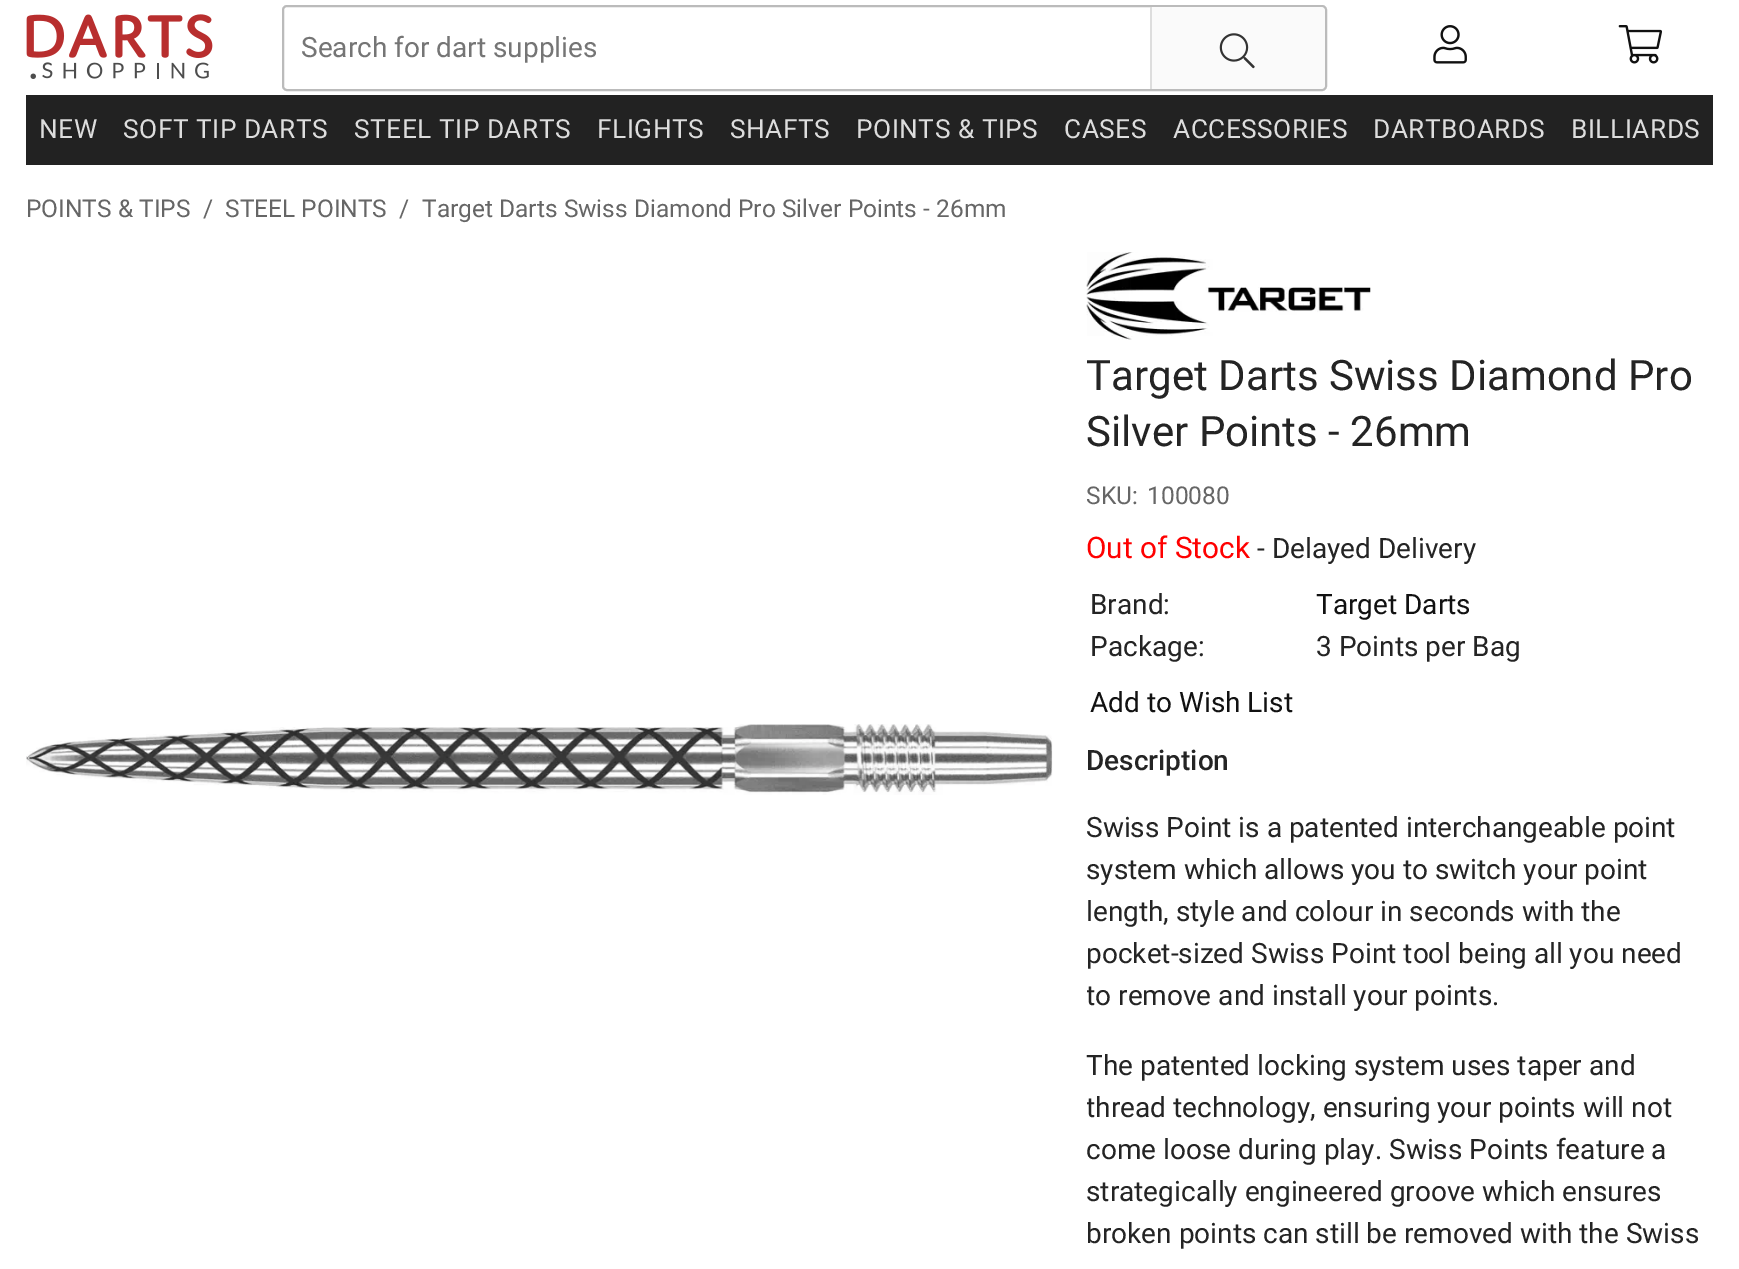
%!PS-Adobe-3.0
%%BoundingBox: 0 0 1739 1269
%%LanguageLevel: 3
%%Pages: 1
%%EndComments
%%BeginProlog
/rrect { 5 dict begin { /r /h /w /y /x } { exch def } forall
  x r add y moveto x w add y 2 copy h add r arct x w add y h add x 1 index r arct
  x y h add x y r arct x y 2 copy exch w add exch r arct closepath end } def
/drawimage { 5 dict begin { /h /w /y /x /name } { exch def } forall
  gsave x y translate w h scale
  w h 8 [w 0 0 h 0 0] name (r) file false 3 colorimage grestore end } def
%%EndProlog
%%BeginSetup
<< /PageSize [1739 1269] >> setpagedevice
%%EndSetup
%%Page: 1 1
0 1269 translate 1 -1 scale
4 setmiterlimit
1 setgray
0 0 1739 1269 rectfill
(images/1.raw) 26 14 187 65 drawimage
0.733 setgray
2 setlinewidth
283 6 1043 84 4 rrect stroke
0.98 setgray
newpath 1150 7 moveto 1320 7 lineto 1323 7 1325 9 1325 12 curveto 1325 84 lineto 1325 87 1323 89 1320 89 curveto 1150 89 lineto closepath fill
0.867 setgray
1150 7 2 82 rectfill
(images/2.raw) 1219 33 36 36 drawimage
(images/3.raw) 1433 25 34 39 drawimage
(images/4.raw) 1618 25 44 39 drawimage
0.133 setgray
26 95 1687 70 rectfill
(images/5.raw) 26 724 1027 71 drawimage
(images/6.raw) 1086 252 285 88 drawimage
/Roboto-Regular [28 0 0 -28 0 0] selectfont
0.459 setgray
301 57 moveto (Search for dart supplies) show
/Roboto-Regular [26.25 0 0 -26.25 0 0] selectfont
0.867 setgray
39 138 moveto 0.5 0 (NEW) ashow
123 138 moveto 0.5 0 (SOFT TIP DARTS) ashow
354 138 moveto 0.5 0 (STEEL TIP DARTS) ashow
597 138 moveto 0.5 0 (FLIGHTS) ashow
730 138 moveto 0.5 0 (SHAFTS) ashow
856 138 moveto 0.5 0 (POINTS & TIPS) ashow
1064 138 moveto 0.5 0 (CASES) ashow
1173 138 moveto 0.5 0 (ACCESSORIES) ashow
1373 138 moveto 0.5 0 (DARTBOARDS) ashow
1571 138 moveto 0.5 0 (BILLIARDS) ashow
/Roboto-Regular [24.5 0 0 -24.5 0 0] selectfont
0.4 setgray
26 217 moveto (POINTS & TIPS) show
203 217 moveto (/) show
225 217 moveto (STEEL POINTS) show
399 217 moveto (/) show
422 217 moveto (Target Darts Swiss Diamond Pro Silver Points - 26mm) show
/Roboto-Regular [42 0 0 -42 0 0] selectfont
0.141 setgray
1086 390 moveto (Target Darts Swiss Diamond Pro) show
1086 446 moveto (Silver Points - 26mm) show
/Roboto-Regular [24.5 0 0 -24.5 0 0] selectfont
0.4 setgray
1086 504 moveto (SKU:) show
1147 504 moveto (100080) show
/Roboto-Regular [29.75 0 0 -29.75 0 0] selectfont
1 0 0 setrgbcolor
1086 558 moveto (Out of Stock) show
/Roboto-Regular [28 0 0 -28 0 0] selectfont
0.141 setgray
1257 558 moveto (- Delayed Delivery) show
1090 614 moveto (Brand:) show
0.067 setgray
1316 614 moveto (Target Darts) show
0.141 setgray
1090 656 moveto (Package:) show
1316 656 moveto (3 Points per Bag) show
0.067 setgray
1090 712 moveto (Add to Wish List) show
/Roboto-Medium [28 0 0 -28 0 0] selectfont
0.141 setgray
1086 770 moveto (Description) show
/Roboto-Regular [28 0 0 -28 0 0] selectfont
1086 837 moveto (Swiss Point is a patented interchangeable point) show
1086 879 moveto (system which allows you to switch your point) show
1086 921 moveto (length, style and colour in seconds with the) show
1086 963 moveto (pocket-sized Swiss Point tool being all you need) show
gsave
1087 721 626 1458 rectclip
1086 1005 moveto (to remove and install your points.) show
grestore
1086 1075 moveto (The patented locking system uses taper and) show
gsave
1087 721 626 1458 rectclip
1086 1117 moveto (thread technology, ensuring your points will not) show
grestore
1086 1159 moveto (come loose during play. Swiss Points feature a) show
1086 1201 moveto (strategically engineered groove which ensures) show
1086 1243 moveto (broken points can still be removed with the Swiss) show
showpage
%%EOF
